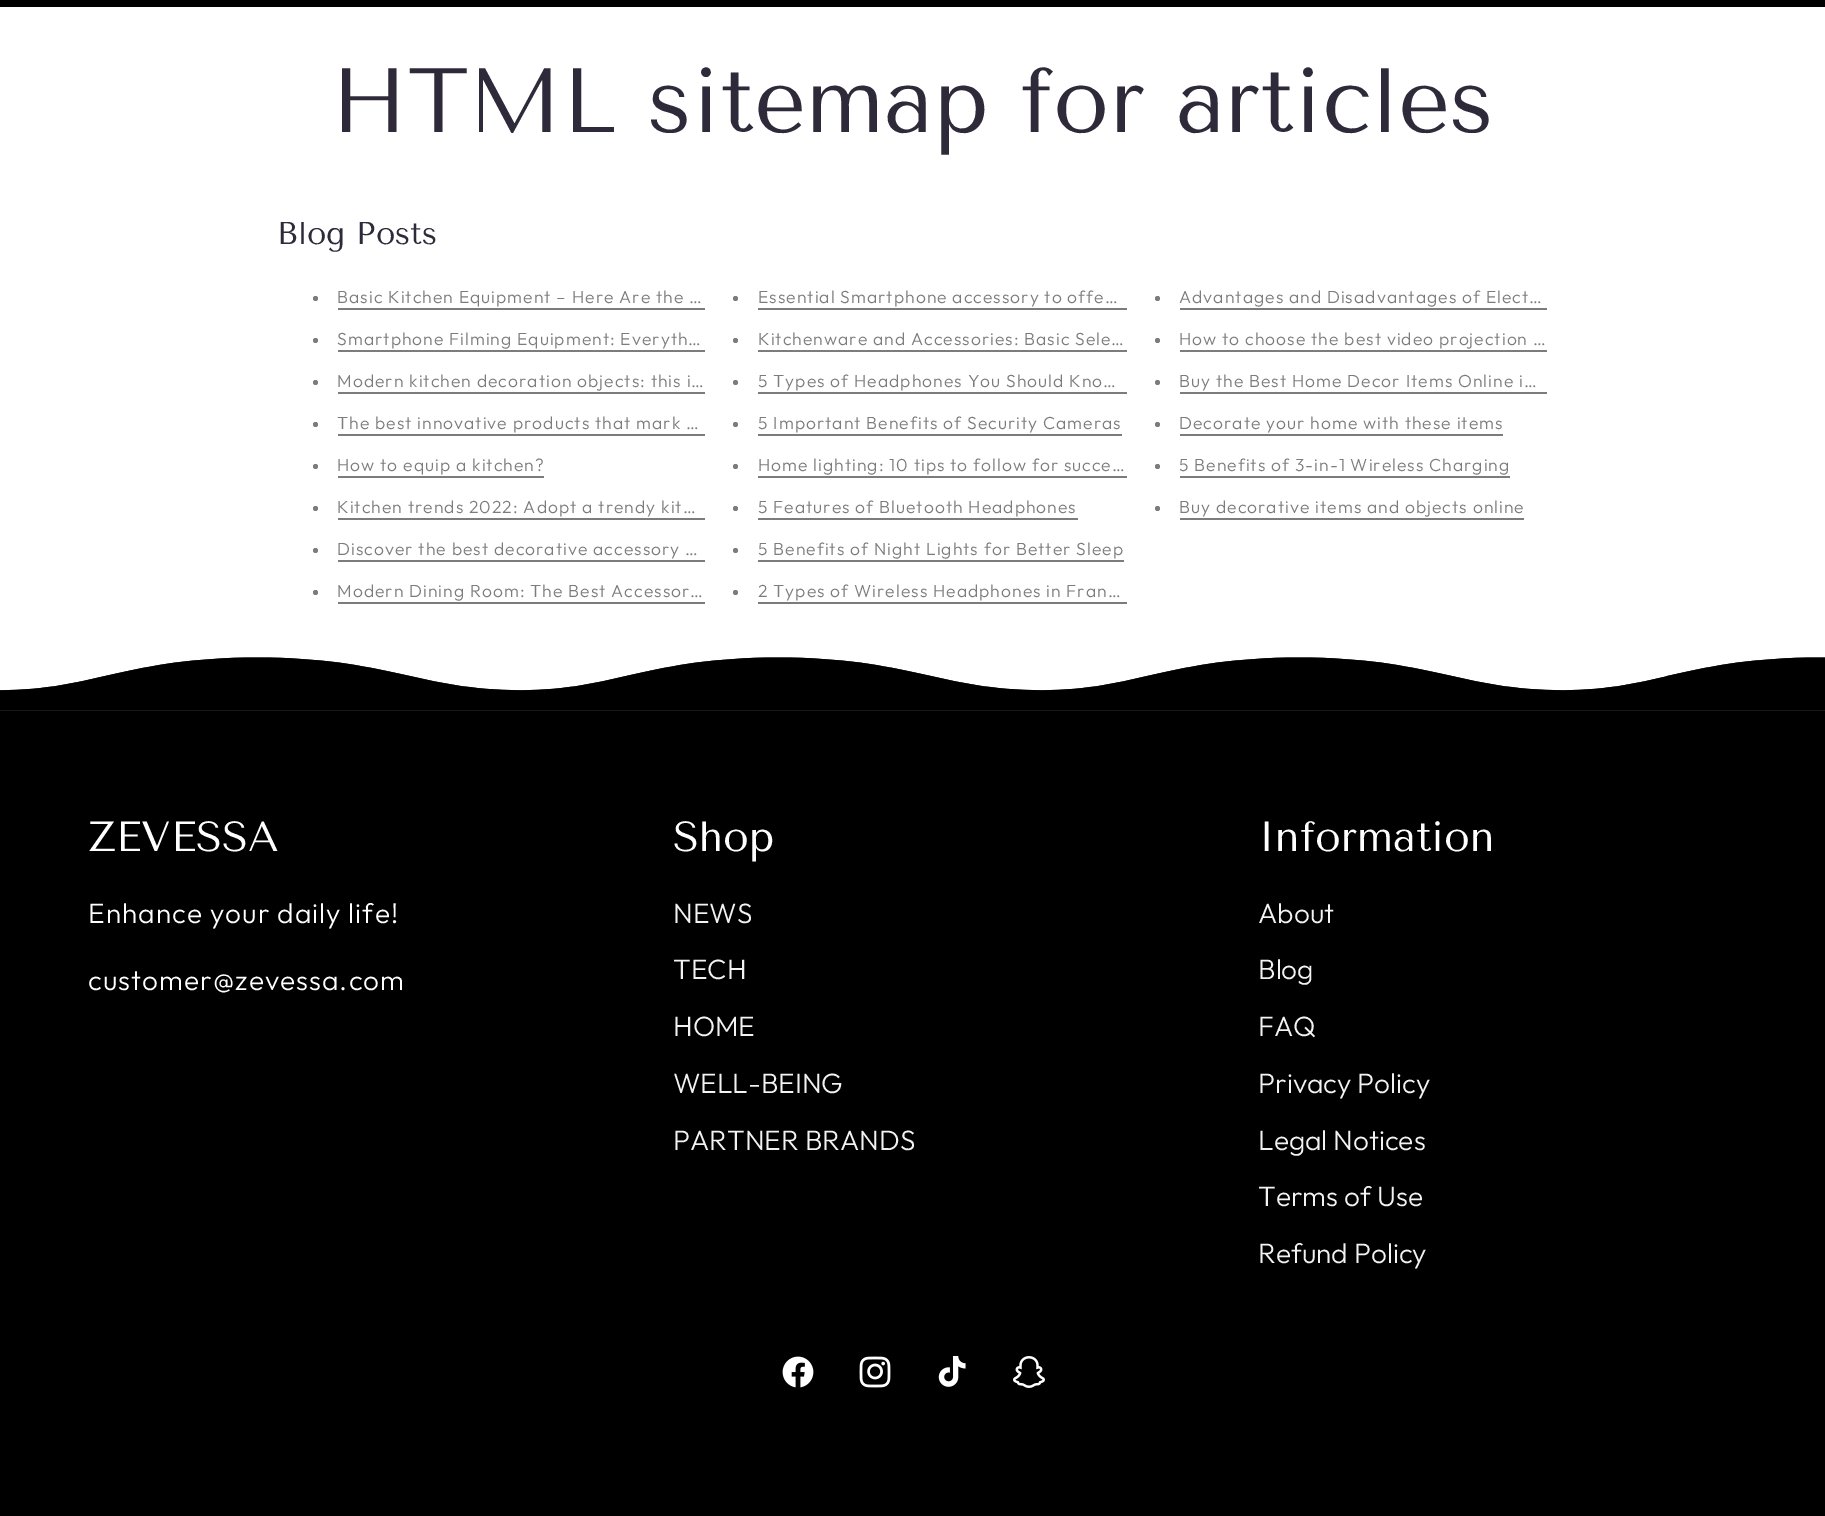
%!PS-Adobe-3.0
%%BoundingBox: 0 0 1825 1516
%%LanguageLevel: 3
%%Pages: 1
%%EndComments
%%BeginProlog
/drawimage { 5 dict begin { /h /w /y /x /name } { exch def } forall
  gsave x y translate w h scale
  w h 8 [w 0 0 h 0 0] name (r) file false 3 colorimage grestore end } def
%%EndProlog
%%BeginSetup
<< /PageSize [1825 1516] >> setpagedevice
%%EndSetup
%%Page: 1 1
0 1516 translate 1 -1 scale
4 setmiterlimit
1 setgray
0 0 1825 1516 rectfill
0 setgray
0 0 1825 7 rectfill
0.486 setgray
newpath 315.5 298.5 2.5 0 360 arc closepath fill
338 308 367 2 rectfill
newpath 735.5 298.5 2.5 0 360 arc closepath fill
758 308 369 2 rectfill
newpath 1157.5 298.5 2.5 0 360 arc closepath fill
1180 308 367 2 rectfill
newpath 315.5 340.5 2.5 0 360 arc closepath fill
338 350 367 2 rectfill
newpath 735.5 340.5 2.5 0 360 arc closepath fill
758 350 369 2 rectfill
newpath 1157.5 340.5 2.5 0 360 arc closepath fill
1180 350 367 2 rectfill
newpath 315.5 382.5 2.5 0 360 arc closepath fill
338 392 367 2 rectfill
newpath 735.5 382.5 2.5 0 360 arc closepath fill
758 392 369 2 rectfill
newpath 1157.5 382.5 2.5 0 360 arc closepath fill
1180 392 367 2 rectfill
newpath 315.5 424.5 2.5 0 360 arc closepath fill
338 434 367 2 rectfill
newpath 735.5 424.5 2.5 0 360 arc closepath fill
758 434 364 2 rectfill
newpath 1157.5 424.5 2.5 0 360 arc closepath fill
1180 434 323 2 rectfill
newpath 315.5 466.5 2.5 0 360 arc closepath fill
338 476 206 2 rectfill
newpath 735.5 466.5 2.5 0 360 arc closepath fill
758 476 369 2 rectfill
newpath 1157.5 466.5 2.5 0 360 arc closepath fill
1180 476 330 2 rectfill
newpath 315.5 508.5 2.5 0 360 arc closepath fill
338 518 367 2 rectfill
newpath 735.5 508.5 2.5 0 360 arc closepath fill
758 518 320 2 rectfill
newpath 1157.5 508.5 2.5 0 360 arc closepath fill
1180 518 344 2 rectfill
newpath 315.5 550.5 2.5 0 360 arc closepath fill
338 560 367 2 rectfill
newpath 735.5 550.5 2.5 0 360 arc closepath fill
758 560 366 2 rectfill
newpath 315.5 592.5 2.5 0 360 arc closepath fill
338 602 367 2 rectfill
newpath 735.5 592.5 2.5 0 360 arc closepath fill
758 602 369 2 rectfill
(images/1.raw) 0 657 1825 54 drawimage
(images/2.raw) 0 657 1825 54 drawimage
(images/3.raw) 0 657 1825 54 drawimage
0 setgray
0 711 1825 805 rectfill
(images/4.raw) 782 1356 32 32 drawimage
(images/5.raw) 859 1356 32 32 drawimage
(images/6.raw) 938 1356 28 31 drawimage
(images/7.raw) 1013 1356 32 32 drawimage
/TenorSans-Regular [91 0 0 -91 0 0] selectfont
0.18 0.165 0.224 setrgbcolor
331 132 moveto (HTML sitemap for articles) show
/TenorSans-Regular [31.5 0 0 -31.5 0 0] selectfont
277 244 moveto (Blog Posts) show
/Outfit-Light [17.5 0 0 -17.5 0 0] selectfont
0.486 setgray
337 303 moveto 1.05 0 (Basic Kitchen Equipment – Here Are the …) ashow
758 303 moveto 1.05 0 (Essential Smartphone accessory to offe…) ashow
1179 303 moveto 1.05 0 (Advantages and Disadvantages of Elect…) ashow
337 345 moveto 1.05 0 (Smartphone Filming Equipment: Everyth…) ashow
758 345 moveto 1.05 0 (Kitchenware and Accessories: Basic Sele…) ashow
1179 345 moveto 1.05 0 (How to choose the best video projection …) ashow
337 387 moveto 1.05 0 (Modern kitchen decoration objects: this i…) ashow
758 387 moveto 1.05 0 (5 Types of Headphones You Should Kno…) ashow
1179 387 moveto 1.05 0 (Buy the Best Home Decor Items Online i…) ashow
337 429 moveto 1.05 0 (The best innovative products that mark …) ashow
758 429 moveto 1.05 0 (5 Important Benefits of Security Cameras) ashow
1179 429 moveto 1.05 0 (Decorate your home with these items) ashow
337 471 moveto 1.05 0 (How to equip a kitchen?) ashow
758 471 moveto 1.05 0 (Home lighting: 10 tips to follow for succe…) ashow
1179 471 moveto 1.05 0 (5 Benefits of 3-in-1 Wireless Charging) ashow
337 513 moveto 1.05 0 (Kitchen trends 2022: Adopt a trendy kit…) ashow
758 513 moveto 1.05 0 (5 Features of Bluetooth Headphones) ashow
1179 513 moveto 1.05 0 (Buy decorative items and objects online) ashow
337 555 moveto 1.05 0 (Discover the best decorative accessory …) ashow
758 555 moveto 1.05 0 (5 Benefits of Night Lights for Better Sleep) ashow
337 597 moveto 1.05 0 (Modern Dining Room: The Best Accessor…) ashow
758 597 moveto 1.05 0 (2 Types of Wireless Headphones in Fran…) ashow
/TenorSans-Regular [42 0 0 -42 0 0] selectfont
1 setgray
88 851 moveto (ZEVESSA) show
/Outfit-Light [28 0 0 -28 0 0] selectfont
88 923 moveto 1.05 0 (Enhance your daily life!) ashow
88 990 moveto 1.05 0 (customer@zevessa.com) ashow
/TenorSans-Regular [42 0 0 -42 0 0] selectfont
673 851 moveto (Shop) show
/Outfit-Light [28 0 0 -28 0 0] selectfont
0.949 setgray
673 923 moveto (NEWS) show
673 979 moveto (TECH) show
673 1036 moveto (HOME) show
673 1093 moveto (WELL-BEING) show
673 1150 moveto (PARTNER BRANDS) show
/TenorSans-Regular [42 0 0 -42 0 0] selectfont
1 setgray
1258 851 moveto (Information) show
/Outfit-Light [28 0 0 -28 0 0] selectfont
0.949 setgray
1258 923 moveto (About) show
1258 979 moveto (Blog) show
1258 1036 moveto (FAQ) show
1258 1093 moveto (Privacy Policy) show
1258 1150 moveto (Legal Notices) show
1258 1206 moveto (Terms of Use) show
1258 1263 moveto (Refund Policy) show
showpage
%%EOF
